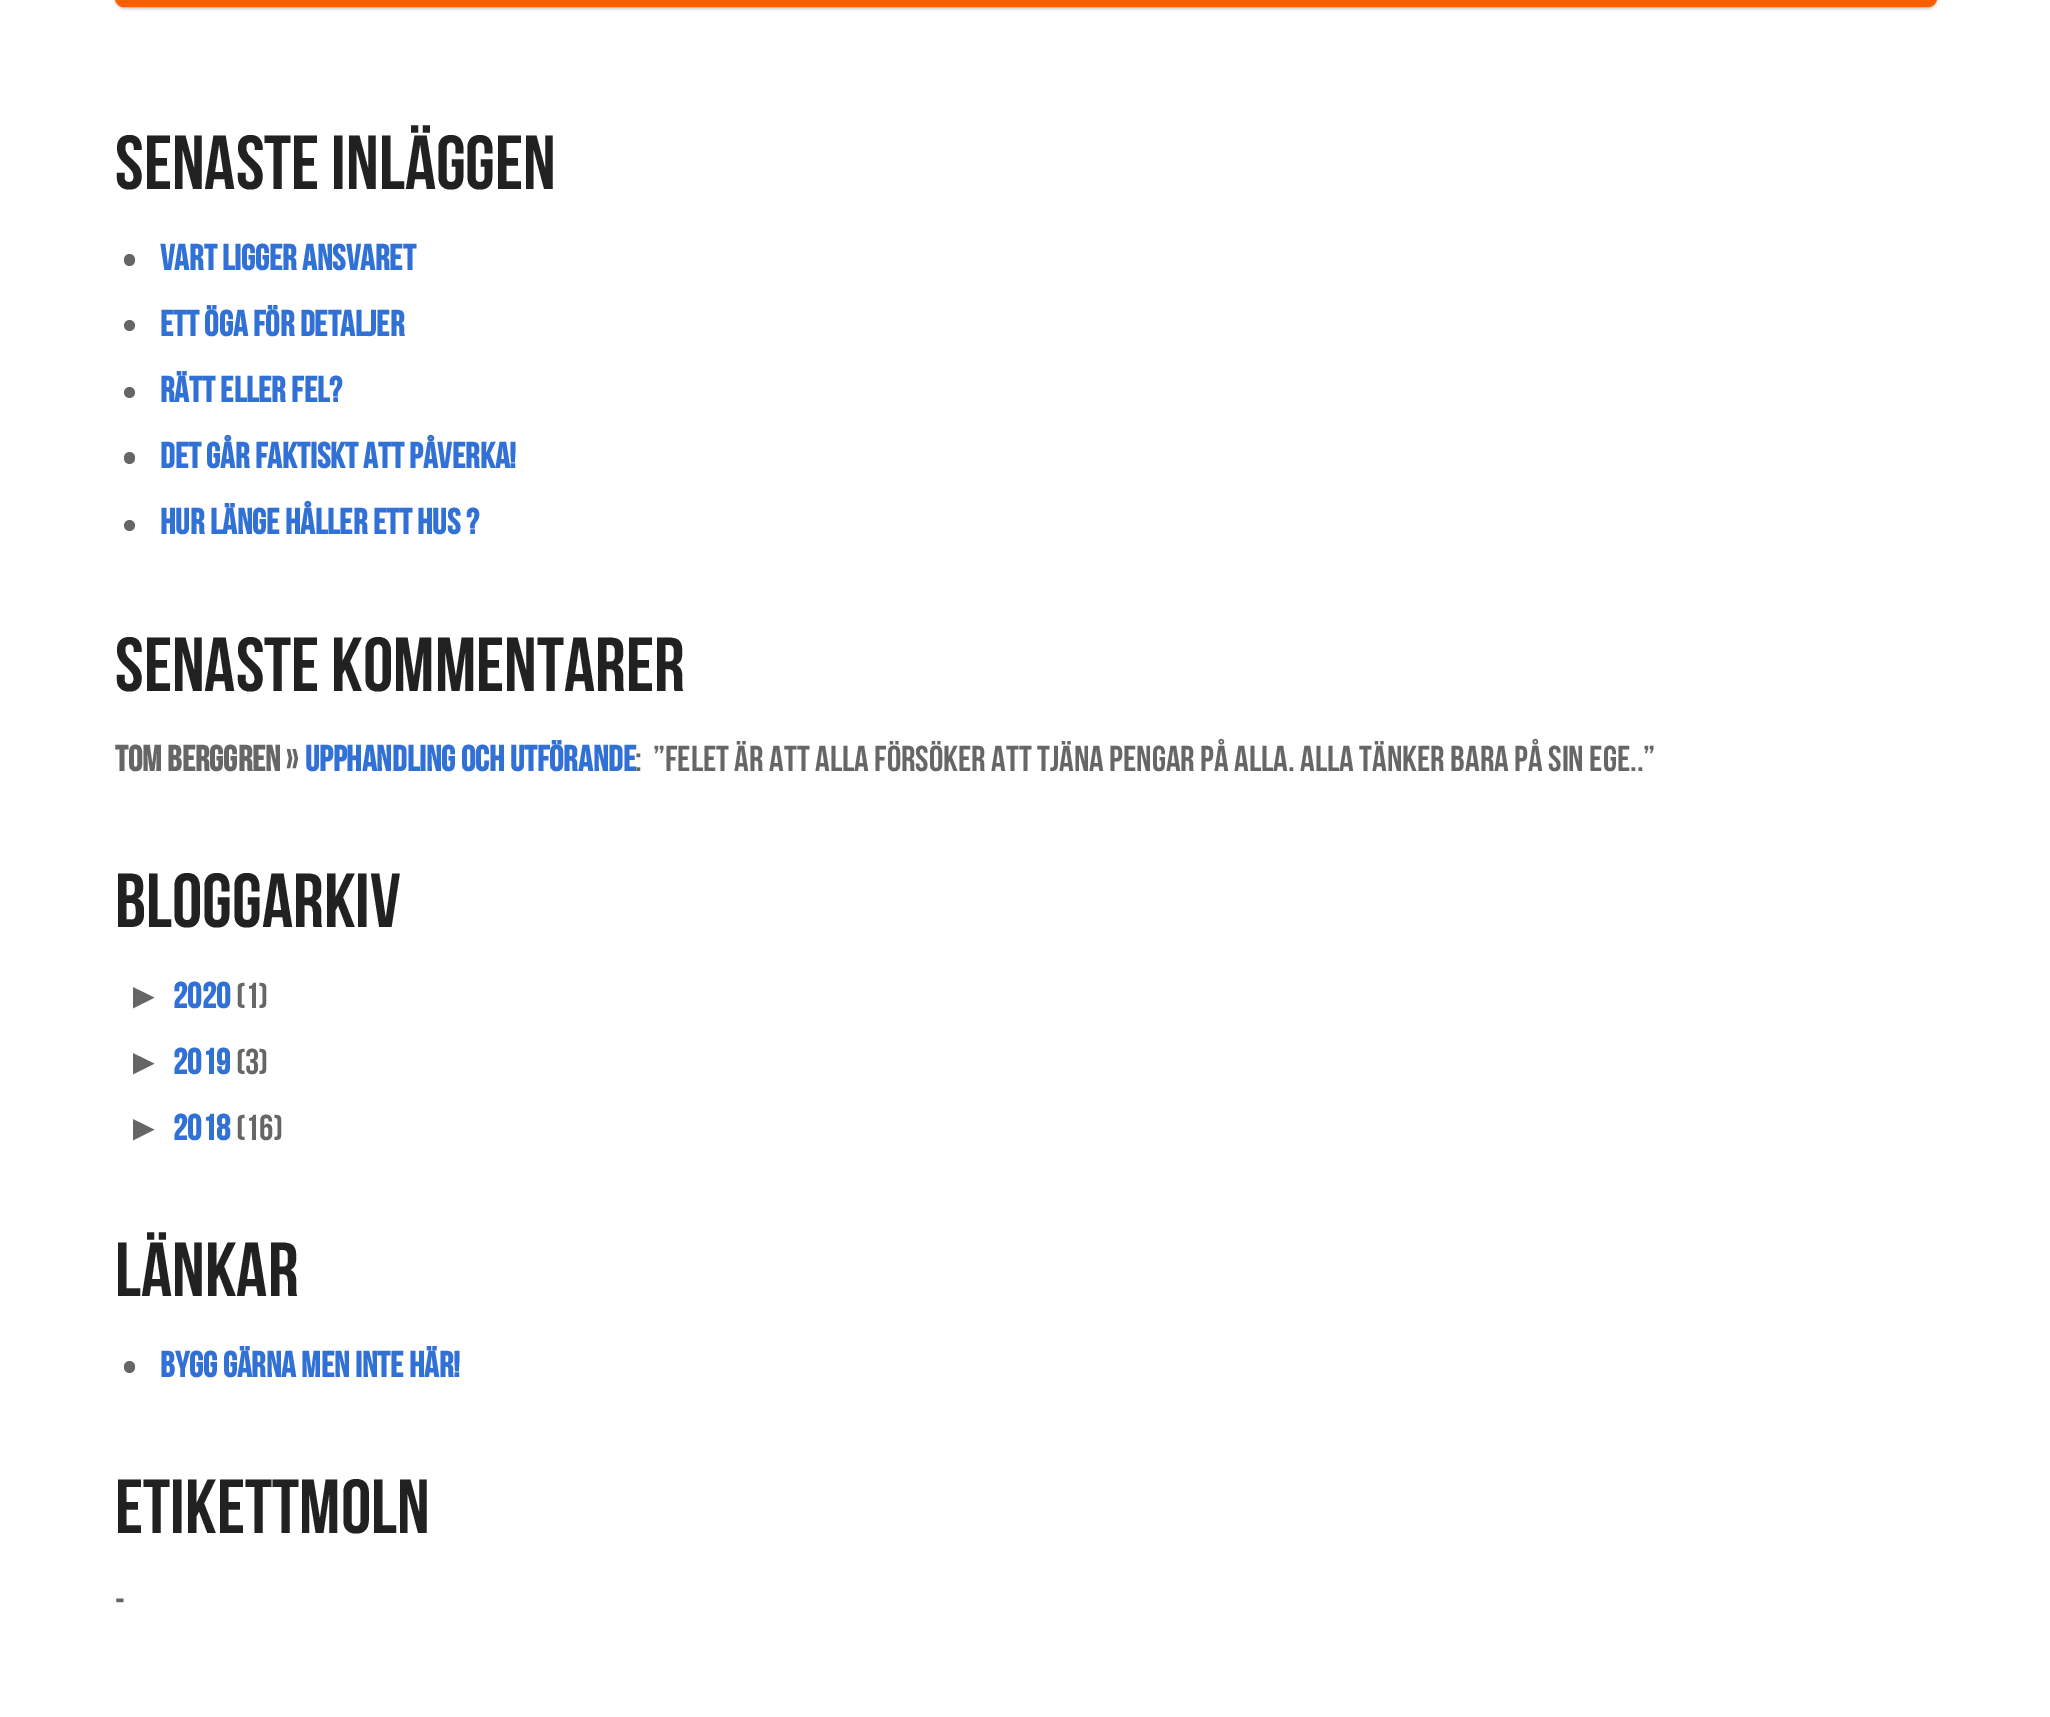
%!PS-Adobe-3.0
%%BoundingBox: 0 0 2050 1717
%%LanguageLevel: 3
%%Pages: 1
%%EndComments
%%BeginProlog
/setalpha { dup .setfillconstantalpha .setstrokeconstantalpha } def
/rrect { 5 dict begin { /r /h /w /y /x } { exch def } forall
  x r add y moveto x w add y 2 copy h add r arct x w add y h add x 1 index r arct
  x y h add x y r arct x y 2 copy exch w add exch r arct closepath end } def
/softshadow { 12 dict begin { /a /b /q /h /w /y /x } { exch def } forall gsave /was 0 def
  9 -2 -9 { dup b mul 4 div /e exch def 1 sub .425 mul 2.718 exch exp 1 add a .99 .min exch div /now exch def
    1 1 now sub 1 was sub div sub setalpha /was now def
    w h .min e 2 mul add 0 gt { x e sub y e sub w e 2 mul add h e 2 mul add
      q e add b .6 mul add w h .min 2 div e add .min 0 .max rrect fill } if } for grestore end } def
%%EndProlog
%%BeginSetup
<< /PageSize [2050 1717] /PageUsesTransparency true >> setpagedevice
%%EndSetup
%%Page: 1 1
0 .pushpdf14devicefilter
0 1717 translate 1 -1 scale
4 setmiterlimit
1 setgray
0 0 2050 1717 rectfill
0 setgray
117 -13 1818 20 7 2 0.6 softshadow
1 0.369 0 setrgbcolor
115 -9 1822 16 9 rrect fill
0.4 setgray
124 254 11 12 5.5 rrect fill
newpath 129.5 325.5 5.5 0 360 arc closepath fill
newpath 129.5 392.5 5.5 0 360 arc closepath fill
124 452 11 12 5.5 rrect fill
newpath 129.5 525.5 5.5 0 360 arc closepath fill
124 1361 11 12 5.5 rrect fill
/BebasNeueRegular-Regular [76.5 0 0 -76.5 0 0] selectfont
0.129 setgray
115 189 moveto (Senaste inläggen) show
/BebasNeueRegular-Bold [36 0 0 -36 0 0] selectfont
0.192 0.439 0.831 setrgbcolor
160 270 moveto (Vart ligger ansvaret) show
160 336 moveto (Ett öga för detaljer) show
160 402 moveto (Rätt eller fel?) show
160 468 moveto (Det går faktiskt att påverka!) show
160 534 moveto (Hur länge håller ett hus ?) show
/BebasNeueRegular-Regular [76.5 0 0 -76.5 0 0] selectfont
0.129 setgray
115 691 moveto (Senaste kommentarer) show
/BebasNeueRegular-Bold [36 0 0 -36 0 0] selectfont
0.4 setgray
115 771 moveto (Tom Berggren) show
/BebasNeueRegular-Regular [36 0 0 -36 0 0] selectfont
286 771 moveto (») show
/BebasNeueRegular-Bold [36 0 0 -36 0 0] selectfont
0.192 0.439 0.831 setrgbcolor
305 771 moveto (Upphandling och utförande) show
/BebasNeueRegular-Regular [36 0 0 -36 0 0] selectfont
0.4 setgray
635 771 moveto (:) show
653 771 moveto (”Felet är att alla försöker att tjäna pengar på alla. Alla tänker bara på sin ege..”) show
/BebasNeueRegular-Regular [76.5 0 0 -76.5 0 0] selectfont
0.129 setgray
115 927 moveto (Bloggarkiv) show
/LiberationSans-Regular [36 0 0 -36 0 0] selectfont
0.4 setgray
126 1008 moveto (►) show
/BebasNeueRegular-Bold [36 0 0 -36 0 0] selectfont
0.192 0.439 0.831 setrgbcolor
173 1008 moveto (2020) show
/BebasNeueRegular-Regular [36 0 0 -36 0 0] selectfont
0.4 setgray
236 1008 moveto (\(1\)) show
/LiberationSans-Regular [36 0 0 -36 0 0] selectfont
126 1074 moveto (►) show
/BebasNeueRegular-Bold [36 0 0 -36 0 0] selectfont
0.192 0.439 0.831 setrgbcolor
173 1074 moveto (2019) show
/BebasNeueRegular-Regular [36 0 0 -36 0 0] selectfont
0.4 setgray
236 1074 moveto (\(3\)) show
/LiberationSans-Regular [36 0 0 -36 0 0] selectfont
126 1140 moveto (►) show
/BebasNeueRegular-Bold [36 0 0 -36 0 0] selectfont
0.192 0.439 0.831 setrgbcolor
173 1140 moveto (2018) show
/BebasNeueRegular-Regular [36 0 0 -36 0 0] selectfont
0.4 setgray
236 1140 moveto (\(16\)) show
/BebasNeueRegular-Regular [76.5 0 0 -76.5 0 0] selectfont
0.129 setgray
115 1296 moveto (Länkar) show
/BebasNeueRegular-Bold [36 0 0 -36 0 0] selectfont
0.192 0.439 0.831 setrgbcolor
160 1377 moveto (bygg gärna men inte här!) show
/BebasNeueRegular-Regular [76.5 0 0 -76.5 0 0] selectfont
0.129 setgray
115 1533 moveto (Etikettmoln) show
/BebasNeueRegular-Regular [36 0 0 -36 0 0] selectfont
0.4 setgray
115 1613 moveto (-) show
.poppdf14devicefilter showpage
%%EOF
